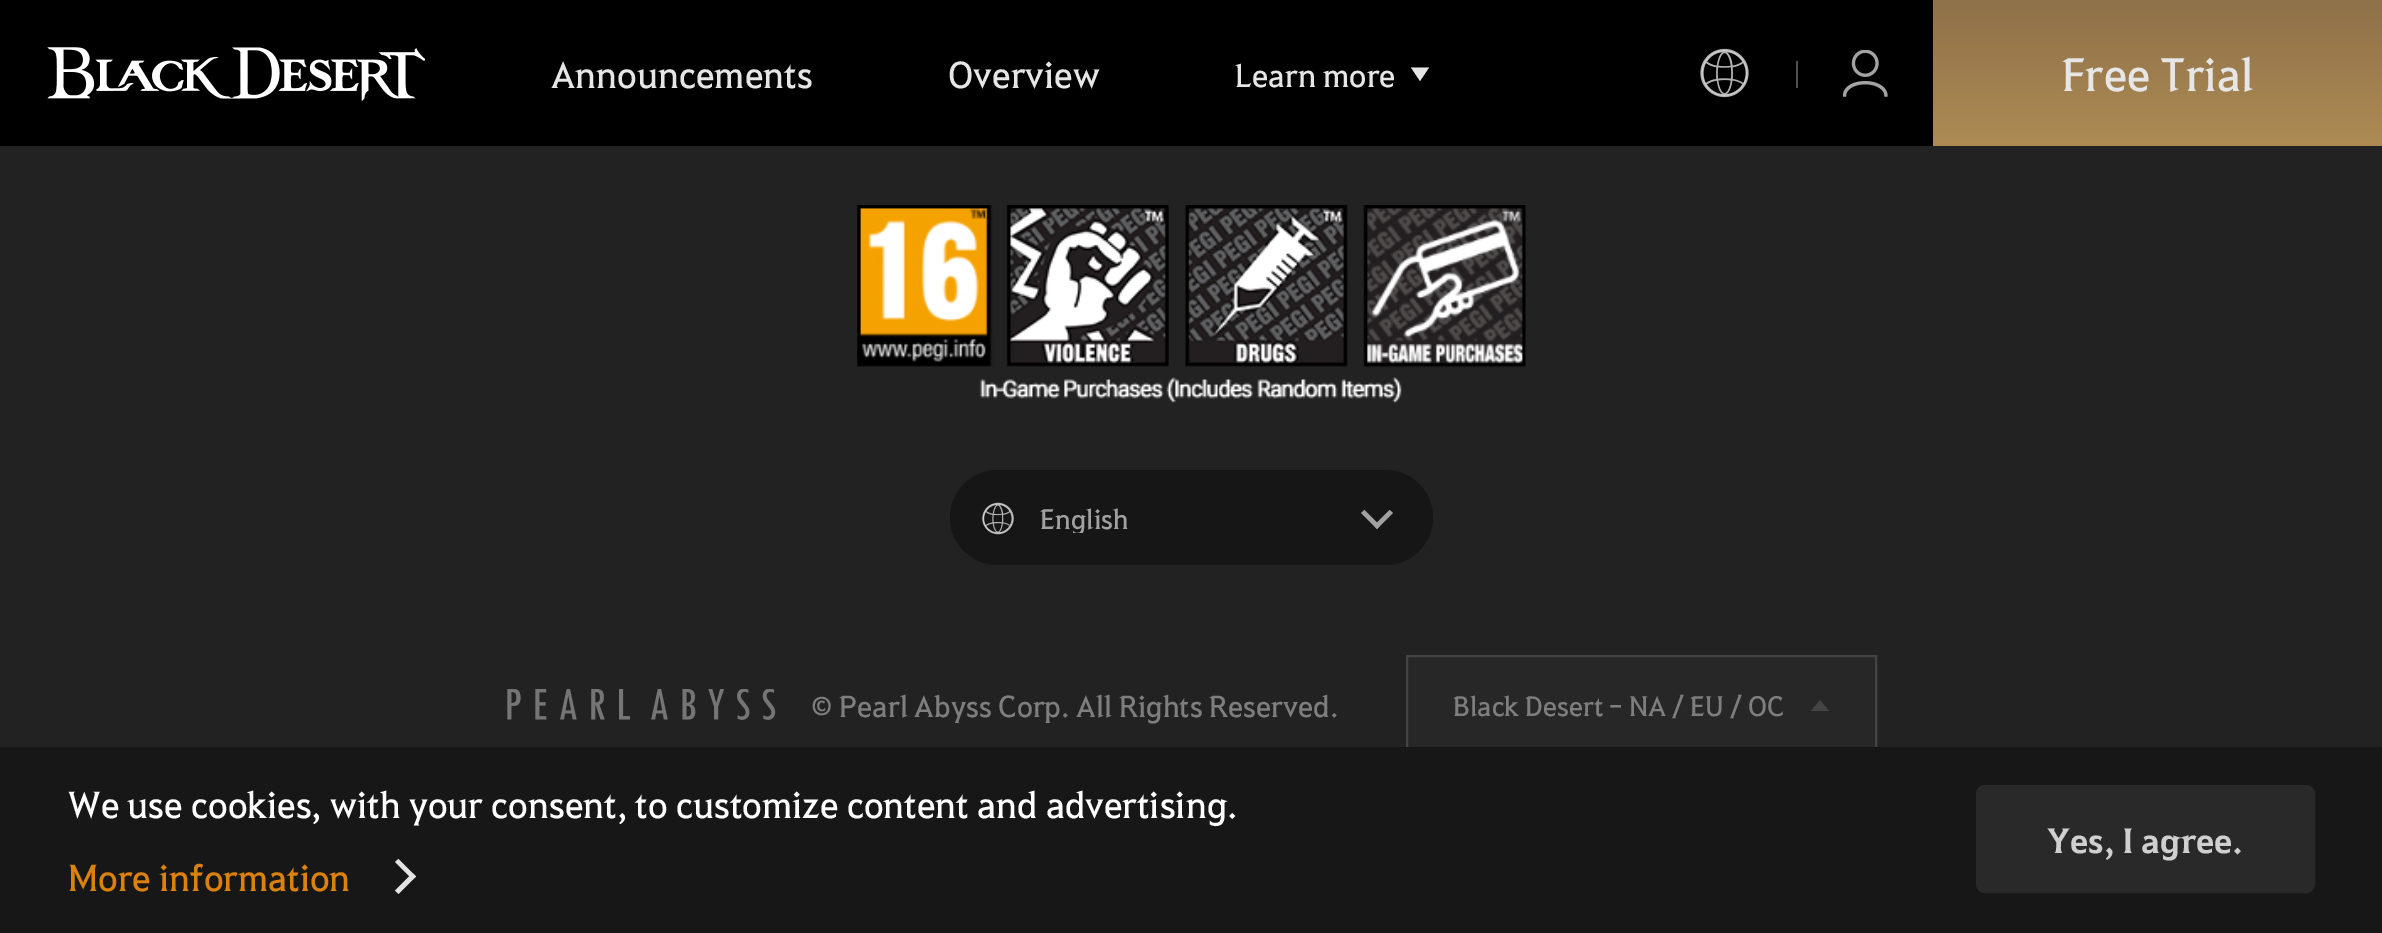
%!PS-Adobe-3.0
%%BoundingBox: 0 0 2382 933
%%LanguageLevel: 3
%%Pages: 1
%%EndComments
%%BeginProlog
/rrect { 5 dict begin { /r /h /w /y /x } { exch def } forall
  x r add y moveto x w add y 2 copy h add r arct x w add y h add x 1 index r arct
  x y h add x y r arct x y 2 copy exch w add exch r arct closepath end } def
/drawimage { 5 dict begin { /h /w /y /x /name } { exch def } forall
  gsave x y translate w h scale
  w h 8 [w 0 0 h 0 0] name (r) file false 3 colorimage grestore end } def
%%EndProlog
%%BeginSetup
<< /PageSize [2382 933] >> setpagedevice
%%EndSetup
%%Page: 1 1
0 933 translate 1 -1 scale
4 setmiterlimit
0.133 setgray
0 0 2382 933 rectfill
0 setgray
0 0 1933 146 rectfill
(images/1.raw) 47 47 378 54 drawimage
0.902 setgray
newpath 1411 67.5 moveto 1429 67.5 lineto 1420 81 lineto closepath fill
(images/2.raw) 1700 48 49 50 drawimage
0.306 0.314 0.329 setrgbcolor
1796 61 2 27 rectfill
(images/3.raw) 1843 50 45 47 drawimage
gsave newpath 1933 0 moveto 2382 0 lineto 2382 146 lineto 1933 146 lineto closepath clip newpath
<< /ShadingType 2 /ColorSpace /DeviceRGB /Coords [2158 0 2158 146] /Extend [true true] /Function << /FunctionType 2 /Domain [0 1] /C0 [0.561 0.443 0.29] /C1 [0.678 0.545 0.325] /N 1 >> >> shfill grestore
(images/4.raw) 857 205 669 198 drawimage
0.086 setgray
950 470 483 95 47.5 rrect fill
(images/5.raw) 982 502 32 33 drawimage
0.631 setgray
newpath 1377 529 moveto 1361 513 lineto 1364.5 510 lineto 1380 525.5 lineto closepath fill
newpath 1377 529 moveto 1374 525.5 lineto 1389.5 510 lineto 1393 513 lineto closepath fill
(images/6.raw) 507 689 269 31 drawimage
0.153 setgray
1408 657 467 90 rectfill
0.267 setgray
2 setlinewidth
1407 656 469 97 rectstroke
newpath 1829 711 moveto 1811 711 lineto 1820 700 lineto closepath fill
0.09 setgray
0 747 2382 186 rectfill
0.894 setgray
newpath 398.5 859 moveto 416 876.5 lineto 412.5 879.5 lineto 395 862 lineto closepath fill
newpath 412.5 873 moveto 416 876.5 lineto 398.5 894 lineto 395 890.5 lineto closepath fill
0.161 setgray
1978.5 787.5 334 103 6.5 rrect gsave fill grestore
5 setlinewidth
stroke
/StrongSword-Regular [36 0 0 -36 0 0] selectfont
0.902 setgray
551 88 moveto (Announcements) show
948 88 moveto (Overview) show
/StrongSword-Regular [31.5 0 0 -31.5 0 0] selectfont
1235 87 moveto (Learn more) show
/StrongSword-Regular [45 0 0 -45 0 0] selectfont
2062 91 moveto (Free Trial) show
gsave
1040 502 303 31 rectclip
/StrongSword-Regular [27 0 0 -27 0 0] selectfont
0.631 setgray
1040 529 moveto (English) show
grestore
/StrongSword-Regular [29.25 0 0 -29.25 0 0] selectfont
0.498 0.494 0.494 setrgbcolor
811 717 moveto (© Pearl Abyss Corp. All Rights Reserved.) show
/StrongSword-Regular [27 0 0 -27 0 0] selectfont
1453 716 moveto (Black Desert - NA / EU / OC) show
/StrongSword-Regular [36 0 0 -36 0 0] selectfont
1 setgray
68 818 moveto (We use cookies, with your consent, to customize content and advertising.) show
0.859 0.506 0.051 setrgbcolor
68 891 moveto (More information) show
/StrongSword-Bold [33.75 0 0 -33.75 0 0] selectfont
0.812 setgray
2047 853 moveto (Yes, I agree.) show
showpage
%%EOF
